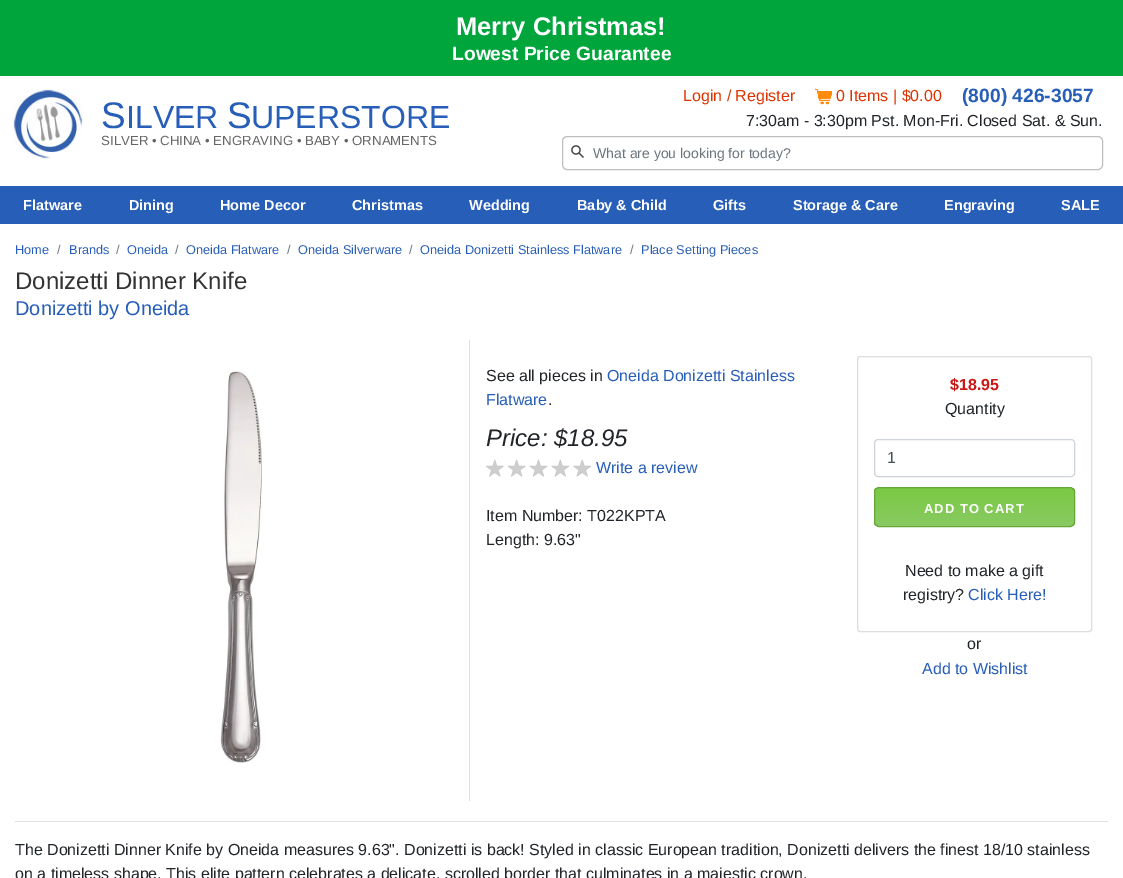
%!PS-Adobe-3.0
%%BoundingBox: 0 0 1123 878
%%LanguageLevel: 3
%%Pages: 1
%%EndComments
%%BeginProlog
/rrect { 5 dict begin { /r /h /w /y /x } { exch def } forall
  x r add y moveto x w add y 2 copy h add r arct x w add y h add x 1 index r arct
  x y h add x y r arct x y 2 copy exch w add exch r arct closepath end } def
/drawimage { 5 dict begin { /h /w /y /x /name } { exch def } forall
  gsave x y translate w h scale
  w h 8 [w 0 0 h 0 0] name (r) file false 3 colorimage grestore end } def
%%EndProlog
%%BeginSetup
<< /PageSize [1123 878] >> setpagedevice
%%EndSetup
%%Page: 1 1
0 878 translate 1 -1 scale
4 setmiterlimit
1 setgray
0 0 1123 878 rectfill
0 0.647 0.235 setrgbcolor
0 0 1123 76 rectfill
(images/1.raw) 13 89 70 70 drawimage
(images/2.raw) 815 88 17 17 drawimage
(images/3.raw) 571 145 13 13 drawimage
0.749 setgray
562.5 136.5 540 33 4.5 rrect stroke
0.153 0.369 0.718 setrgbcolor
0 186 1123 38 rectfill
0.878 setgray
469 340 1 461 rectfill
(images/4.raw) 220 371 43 392 drawimage
(images/5.raw) 486 459 105 18 drawimage
0.867 setgray
857.5 356.5 234 275 2.5 rrect stroke
0.808 0.831 0.855 setrgbcolor
874.5 439.5 200 37 3.5 rrect stroke
gsave
874 487 201 40 5 rrect clip newpath
gsave newpath 874 488 moveto 1075 488 lineto 1075 526 lineto 874 526 lineto closepath clip newpath
<< /ShadingType 2 /ColorSpace /DeviceRGB /Coords [975 488 975 526] /Extend [true true] /Function << /FunctionType 2 /Domain [0 1] /C0 [0.478 0.788 0.263] /C1 [0.533 0.788 0.384] /N 1 >> >> shfill grestore
grestore
0.396 0.651 0.216 setrgbcolor
874.5 487.5 200 39 4.5 rrect stroke
0.878 setgray
15 821 1093 1 rectfill
/LiberationSans-Bold [25.5 0 0 -25.5 0 0] selectfont
1 setgray
456 35 moveto (Merry Christmas!) show
/LiberationSans-Bold [19.25 0 0 -19.25 0 0] selectfont
452 60 moveto (Lowest Price Guarantee) show
/LiberationSans-Regular [37 0 0 -37 0 0] selectfont
0.153 0.369 0.718 setrgbcolor
101 128 moveto (S) show
/LiberationSans-Regular [32 0 0 -32 0 0] selectfont
126 128 moveto (ILVER) show
/LiberationSans-Regular [37 0 0 -37 0 0] selectfont
227 128 moveto (S) show
/LiberationSans-Regular [32 0 0 -32 0 0] selectfont
251 128 moveto (UPERSTORE) show
/LiberationSans-Regular [13.25 0 0 -13.25 0 0] selectfont
0.4 setgray
101 145 moveto (SILVER • CHINA • ENGRAVING • BABY • ORNAMENTS) show
/LiberationSans-Regular [16 0 0 -16 0 0] selectfont
0.867 0.2 0 setrgbcolor
683 101 moveto (Login / Register) show
836 101 moveto (0 Items | $0.00) show
/LiberationSans-Bold [19.25 0 0 -19.25 0 0] selectfont
0.153 0.369 0.718 setrgbcolor
962 102 moveto (\(800\) 426-3057) show
/LiberationSans-Regular [16 0 0 -16 0 0] selectfont
0.129 0.145 0.161 setrgbcolor
746 126 moveto (7:30am - 3:30pm Pst. Mon-Fri. Closed Sat. & Sun.) show
/LiberationSans-Regular [14 0 0 -14 0 0] selectfont
0.424 0.459 0.49 setrgbcolor
593 158 moveto (What are you looking for today?) show
/LiberationSans-Bold [14.5 0 0 -14.5 0 0] selectfont
1 setgray
23 210 moveto (Flatware) show
129 210 moveto (Dining) show
220 210 moveto (Home Decor) show
352 210 moveto (Christmas) show
469 210 moveto (Wedding) show
577 210 moveto (Baby & Child) show
713 210 moveto (Gifts) show
793 210 moveto (Storage & Care) show
944 210 moveto (Engraving) show
1061 210 moveto (SALE) show
/LiberationSans-Regular [12.75 0 0 -12.75 0 0] selectfont
0.153 0.369 0.718 setrgbcolor
15 254 moveto (Home) show
0.424 0.459 0.49 setrgbcolor
57 254 moveto (/) show
0.153 0.369 0.718 setrgbcolor
69 254 moveto (Brands) show
0.424 0.459 0.49 setrgbcolor
116 254 moveto (/) show
0.153 0.369 0.718 setrgbcolor
127 254 moveto (Oneida) show
0.424 0.459 0.49 setrgbcolor
175 254 moveto (/) show
0.153 0.369 0.718 setrgbcolor
186 254 moveto (Oneida Flatware) show
0.424 0.459 0.49 setrgbcolor
287 254 moveto (/) show
0.153 0.369 0.718 setrgbcolor
298 254 moveto (Oneida Silverware) show
0.424 0.459 0.49 setrgbcolor
409 254 moveto (/) show
0.153 0.369 0.718 setrgbcolor
420 254 moveto (Oneida Donizetti Stainless Flatware) show
0.424 0.459 0.49 setrgbcolor
630 254 moveto (/) show
0.153 0.369 0.718 setrgbcolor
641 254 moveto (Place Setting Pieces) show
/LiberationSans-Regular [24 0 0 -24 0 0] selectfont
0.2 setgray
15 289 moveto (Donizetti Dinner Knife) show
/LiberationSans-Regular [20 0 0 -20 0 0] selectfont
0.153 0.369 0.718 setrgbcolor
15 315 moveto (Donizetti by Oneida) show
/LiberationSans-Regular [16 0 0 -16 0 0] selectfont
0.129 0.145 0.161 setrgbcolor
486 381 moveto (See all pieces in) show
0.153 0.369 0.718 setrgbcolor
607 381 moveto (Oneida Donizetti Stainless) show
486 405 moveto (Flatware) show
0.129 0.145 0.161 setrgbcolor
548 405 moveto (.) show
/LiberationSans-Italic [24 0 0 -24 0 0] selectfont
486 446 moveto (Price: $18.95) show
/LiberationSans-Regular [16 0 0 -16 0 0] selectfont
0.153 0.369 0.718 setrgbcolor
596 473 moveto (Write a review) show
0.129 0.145 0.161 setrgbcolor
486 521 moveto (Item Number: T022KPTA) show
486 545 moveto (Length: 9.63") show
/LiberationSans-Bold [16 0 0 -16 0 0] selectfont
0.792 0.094 0.086 setrgbcolor
950 390 moveto ($18.95) show
/LiberationSans-Regular [16 0 0 -16 0 0] selectfont
0.129 0.145 0.161 setrgbcolor
945 414 moveto (Quantity) show
0.286 0.314 0.341 setrgbcolor
887 463 moveto (1) show
/LiberationSans-Bold [13 0 0 -13 0 0] selectfont
1 setgray
924 513 moveto 1 0 (ADD TO CART) ashow
/LiberationSans-Regular [16 0 0 -16 0 0] selectfont
0.129 0.145 0.161 setrgbcolor
905 576 moveto (Need to make a gift) show
903 600 moveto (registry?) show
0.153 0.369 0.718 setrgbcolor
968 600 moveto (Click Here!) show
0.129 0.145 0.161 setrgbcolor
967 649 moveto (or) show
0.153 0.369 0.718 setrgbcolor
922 674 moveto (Add to Wishlist) show
0.129 0.145 0.161 setrgbcolor
15 855 moveto (The Donizetti Dinner Knife by Oneida measures 9.63". Donizetti is back! Styled in classic European tradition, Donizetti delivers the finest 18/10 stainless) show
15 879 moveto (on a timeless shape. This elite pattern celebrates a delicate, scrolled border that culminates in a majestic crown.) show
showpage
%%EOF
